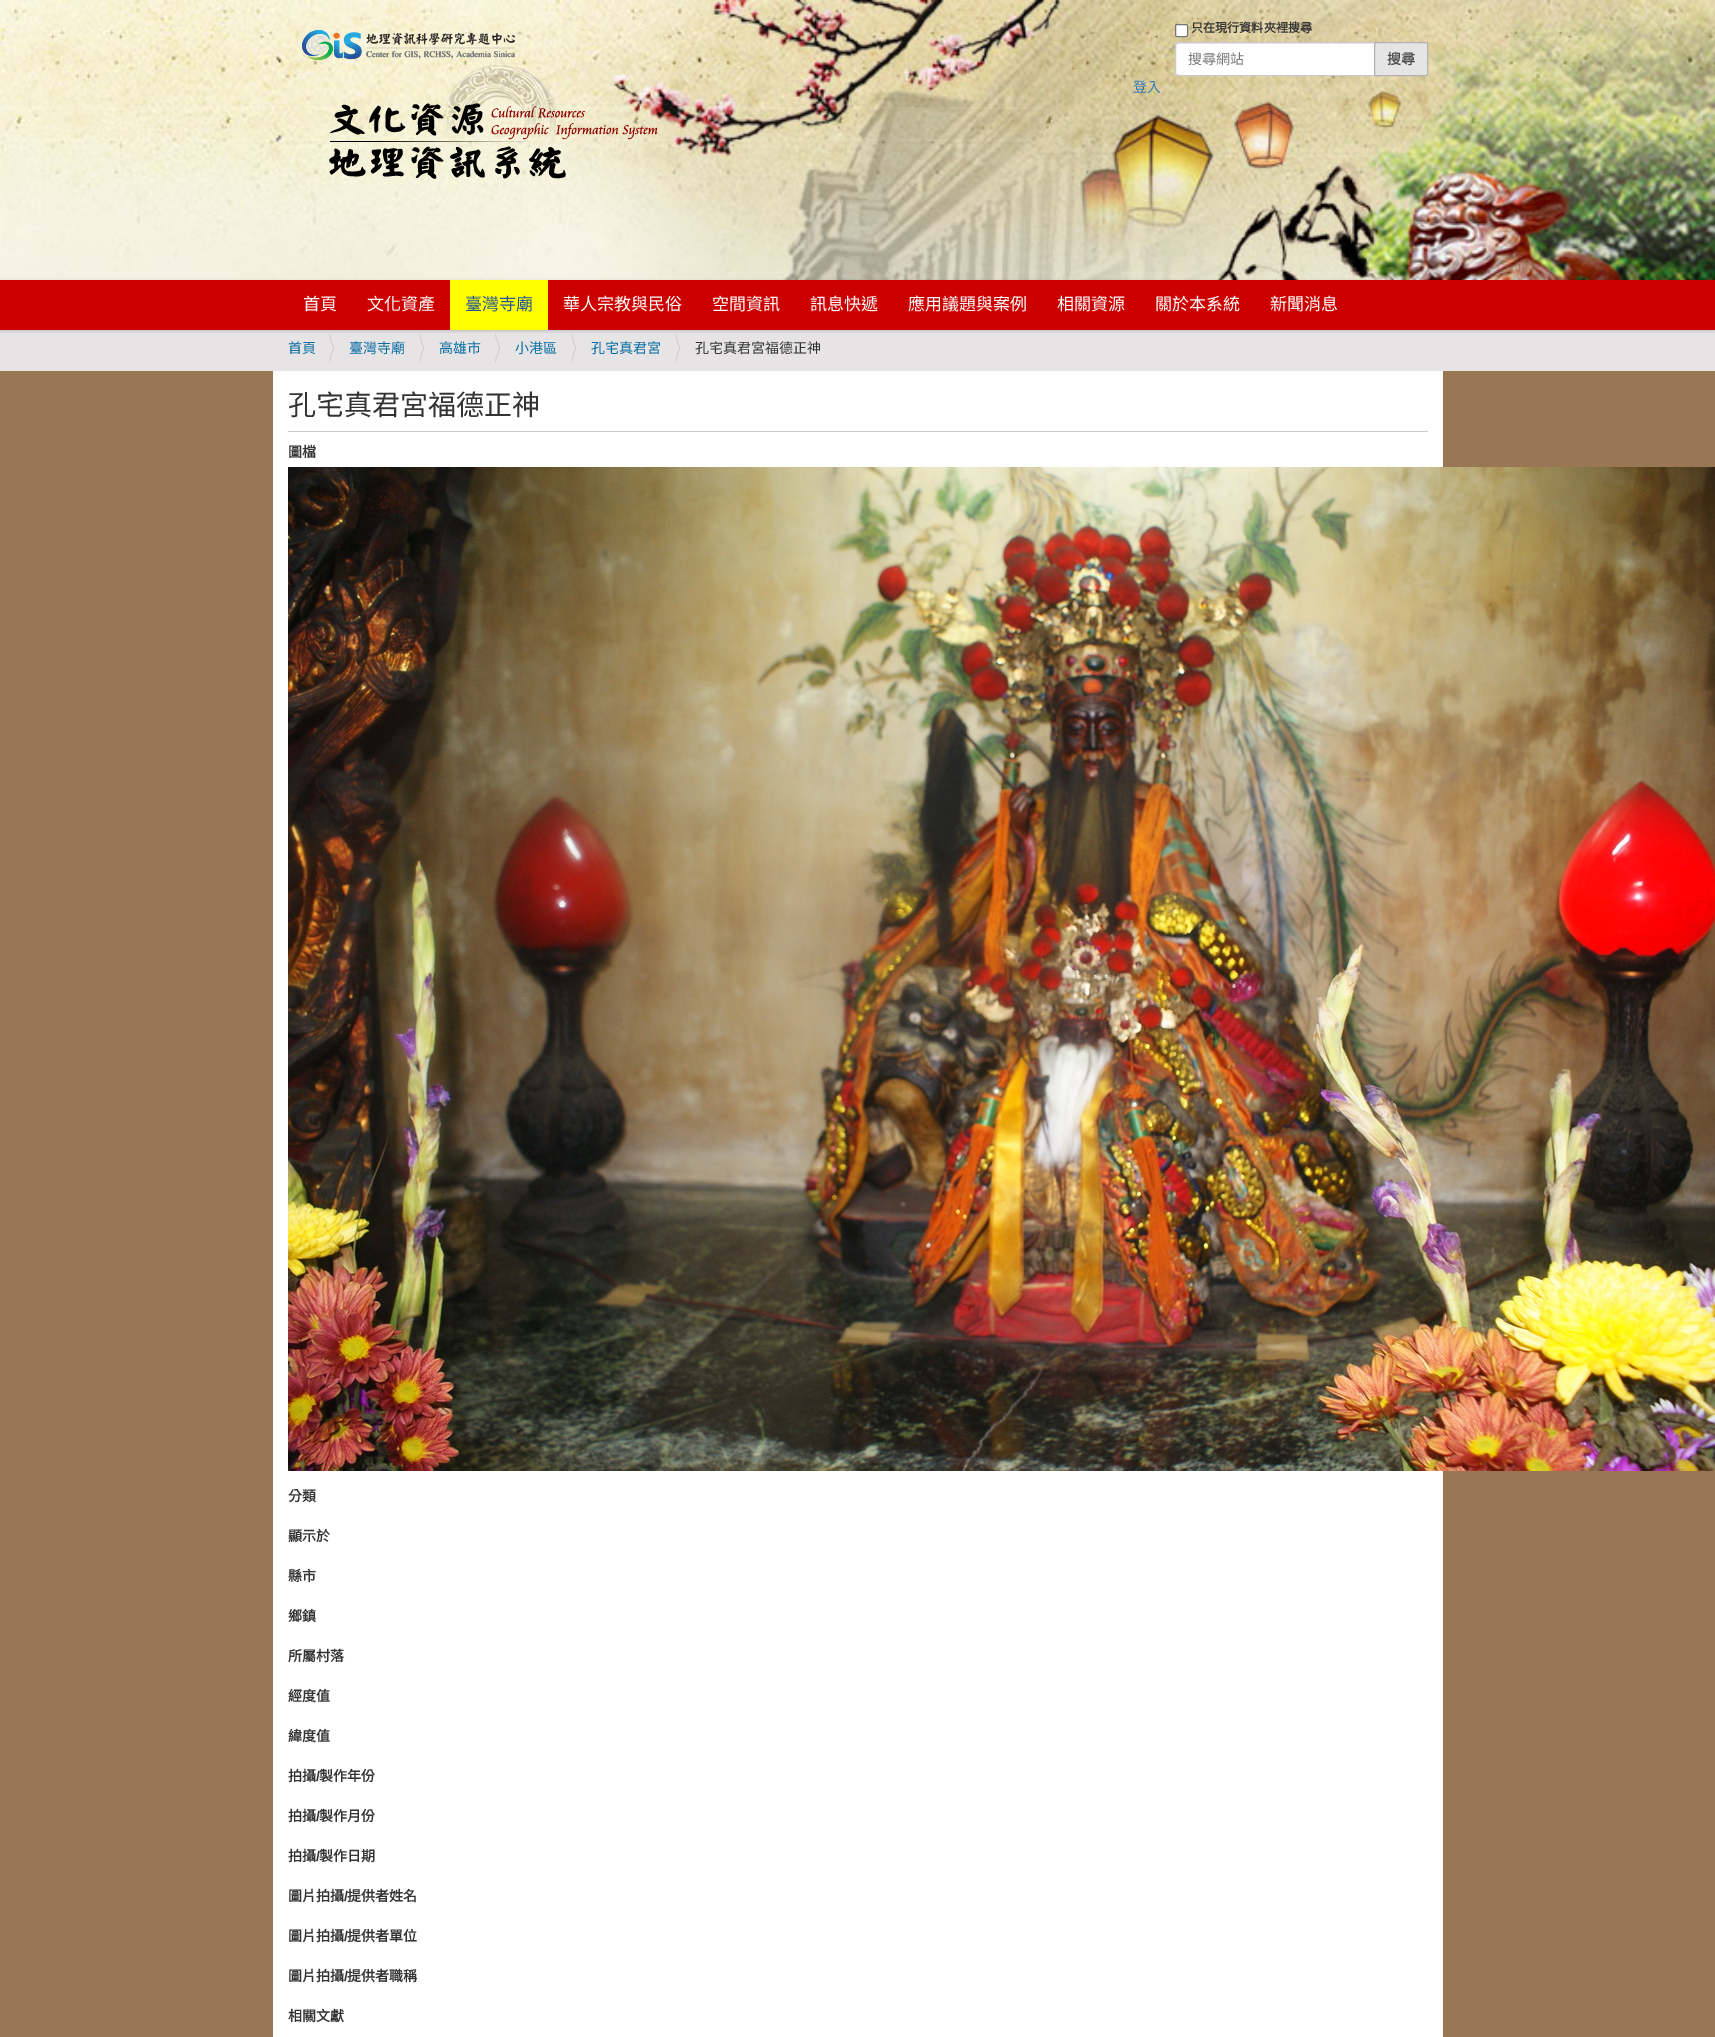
%!PS-Adobe-3.0
%%BoundingBox: 0 0 1715 2037
%%LanguageLevel: 3
%%Pages: 1
%%EndComments
%%BeginProlog
/setalpha { dup .setfillconstantalpha .setstrokeconstantalpha } def
/rrect { 5 dict begin { /r /h /w /y /x } { exch def } forall
  x r add y moveto x w add y 2 copy h add r arct x w add y h add x 1 index r arct
  x y h add x y r arct x y 2 copy exch w add exch r arct closepath end } def
/softshadow { 12 dict begin { /a /b /q /h /w /y /x } { exch def } forall gsave /was 0 def
  9 -2 -9 { dup b mul 4 div /e exch def 1 sub .425 mul 2.718 exch exp 1 add a .99 .min exch div /now exch def
    1 1 now sub 1 was sub div sub setalpha /was now def
    w h .min e 2 mul add 0 gt { x e sub y e sub w e 2 mul add h e 2 mul add
      q e add b .6 mul add w h .min 2 div e add .min 0 .max rrect fill } if } for grestore end } def
/drawimage { 5 dict begin { /h /w /y /x /name } { exch def } forall
  gsave x y translate w h scale
  w h 8 [w 0 0 h 0 0] name (r) file false 3 colorimage grestore end } def
%%EndProlog
%%BeginSetup
<< /PageSize [1715 2037] /PageUsesTransparency true >> setpagedevice
%%EndSetup
%%Page: 1 1
0 .pushpdf14devicefilter
0 2037 translate 1 -1 scale
4 setmiterlimit
0.6 0.467 0.333 setrgbcolor
0 0 1715 2037 rectfill
(images/1.raw) 0 0 1715 280 drawimage
(images/2.raw) 302 30 213 30 drawimage
1 setgray
1175.5 24.5 12 12 1.5 rrect gsave fill grestore
0.463 setgray
stroke
1 setgray
newpath 1179 42 moveto 1375 42 lineto 1375 76 lineto 1179 76 lineto 1177 76 1175 74 1175 72 curveto 1175 46 lineto 1175 44 1177 42 1179 42 curveto closepath fill
0.925 setgray
newpath 1179 44 moveto 1374 44 lineto 1374 43 lineto 1179 43 lineto 1177 43 1176 45 1176 47 curveto 1176 45 1177 44 1179 44 curveto closepath fill
0.8 setgray
newpath 1179 42.5 moveto 1374.5 42.5 lineto 1374.5 75.5 lineto 1179 75.5 lineto 1177 75.5 1175.5 74 1175.5 72 curveto 1175.5 46 lineto 1175.5 44 1177 42.5 1179 42.5 curveto closepath stroke
0.898 setgray
1374.5 42.5 53 33 1.5 rrect gsave fill grestore
0.698 setgray
stroke
(images/3.raw) 329 65 329 114 drawimage
0.902 0.894 0.894 setrgbcolor
0 330 1715 41 rectfill
0 setgray
0 281 1715 50 0 1.5 0.17 softshadow
0.8 0 0 setrgbcolor
0 280 1715 50 rectfill
1 1 0 setrgbcolor
450 280 98 50 rectfill
0.8 setgray
newpath 329 363 moveto 329 333 lineto 334 348 lineto closepath fill
0.902 0.894 0.894 setrgbcolor
newpath 328 363 moveto 328 333 lineto 333 348 lineto closepath fill
0.8 setgray
newpath 419 363 moveto 419 333 lineto 424 348 lineto closepath fill
0.902 0.894 0.894 setrgbcolor
newpath 418 363 moveto 418 333 lineto 423 348 lineto closepath fill
0.8 setgray
newpath 495 363 moveto 495 333 lineto 500 348 lineto closepath fill
0.902 0.894 0.894 setrgbcolor
newpath 494 363 moveto 494 333 lineto 499 348 lineto closepath fill
0.8 setgray
newpath 571 363 moveto 571 333 lineto 576 348 lineto closepath fill
0.902 0.894 0.894 setrgbcolor
newpath 570 363 moveto 570 333 lineto 575 348 lineto closepath fill
0.8 setgray
newpath 675 363 moveto 675 333 lineto 680 348 lineto closepath fill
0.902 0.894 0.894 setrgbcolor
newpath 674 363 moveto 674 333 lineto 679 348 lineto closepath fill
1 setgray
273 371 1170 1666 rectfill
0.8 setgray
288 431 1140 1 rectfill
(images/4.raw) 288 467 1427 1004 drawimage
/NotoSansCJKTC-Bold [12.1 0 0 -12.1 0 0] selectfont
0.2 setgray
1191 32 moveto (只在現行資料夾裡搜尋) show
/NotoSansCJKTC-Regular [14 0 0 -14 0 0] selectfont
0.467 setgray
1188 64 moveto (搜尋網站) show
/NotoSansCJKTC-Bold [14 0 0 -14 0 0] selectfont
0.302 setgray
1387 64 moveto (搜尋) show
/NotoSansCJKTC-Regular [14 0 0 -14 0 0] selectfont
0.2 0.478 0.718 setrgbcolor
1133 92 moveto (登入) show
/NotoSansCJKTC-Regular [17 0 0 -17 0 0] selectfont
1 setgray
303 310 moveto (首頁) show
367 310 moveto (文化資產) show
0.133 0.333 0.6 setrgbcolor
465 310 moveto (臺灣寺廟) show
1 setgray
563 310 moveto (華人宗教與民俗) show
712 310 moveto (空間資訊) show
810 310 moveto (訊息快遞) show
908 310 moveto (應用議題與案例) show
1057 310 moveto (相關資源) show
1155 310 moveto (關於本系統) show
1270 310 moveto (新聞消息) show
/NotoSansCJKTC-Regular [14 0 0 -14 0 0] selectfont
0.031 0.424 0.639 setrgbcolor
288 353 moveto (首頁) show
349 353 moveto (臺灣寺廟) show
439 353 moveto (高雄市) show
515 353 moveto (小港區) show
591 353 moveto (孔宅真君宮) show
0.2 setgray
695 353 moveto (孔宅真君宮福德正神) show
/NotoSansCJKTC-Regular [28 0 0 -28 0 0] selectfont
288 415 moveto (孔宅真君宮福德正神) show
/NotoSansCJKTC-Bold [14 0 0 -14 0 0] selectfont
288 457 moveto (圖檔) show
288 1501 moveto (分類) show
288 1541 moveto (顯示於) show
288 1581 moveto (縣市) show
288 1621 moveto (鄉鎮) show
288 1661 moveto (所屬村落) show
288 1701 moveto (經度值) show
288 1741 moveto (緯度值) show
288 1781 moveto (拍攝) show
/LiberationSans-Bold [14 0 0 -14 0 0] selectfont
316 1781 moveto (/) show
/NotoSansCJKTC-Bold [14 0 0 -14 0 0] selectfont
319 1781 moveto (製作年份) show
288 1821 moveto (拍攝) show
/LiberationSans-Bold [14 0 0 -14 0 0] selectfont
316 1821 moveto (/) show
/NotoSansCJKTC-Bold [14 0 0 -14 0 0] selectfont
319 1821 moveto (製作月份) show
288 1861 moveto (拍攝) show
/LiberationSans-Bold [14 0 0 -14 0 0] selectfont
316 1861 moveto (/) show
/NotoSansCJKTC-Bold [14 0 0 -14 0 0] selectfont
319 1861 moveto (製作日期) show
288 1901 moveto (圖片拍攝) show
/LiberationSans-Bold [14 0 0 -14 0 0] selectfont
344 1901 moveto (/) show
/NotoSansCJKTC-Bold [14 0 0 -14 0 0] selectfont
347 1901 moveto (提供者姓名) show
288 1941 moveto (圖片拍攝) show
/LiberationSans-Bold [14 0 0 -14 0 0] selectfont
344 1941 moveto (/) show
/NotoSansCJKTC-Bold [14 0 0 -14 0 0] selectfont
347 1941 moveto (提供者單位) show
288 1981 moveto (圖片拍攝) show
/LiberationSans-Bold [14 0 0 -14 0 0] selectfont
344 1981 moveto (/) show
/NotoSansCJKTC-Bold [14 0 0 -14 0 0] selectfont
347 1981 moveto (提供者職稱) show
288 2021 moveto (相關文獻) show
.poppdf14devicefilter showpage
%%EOF
